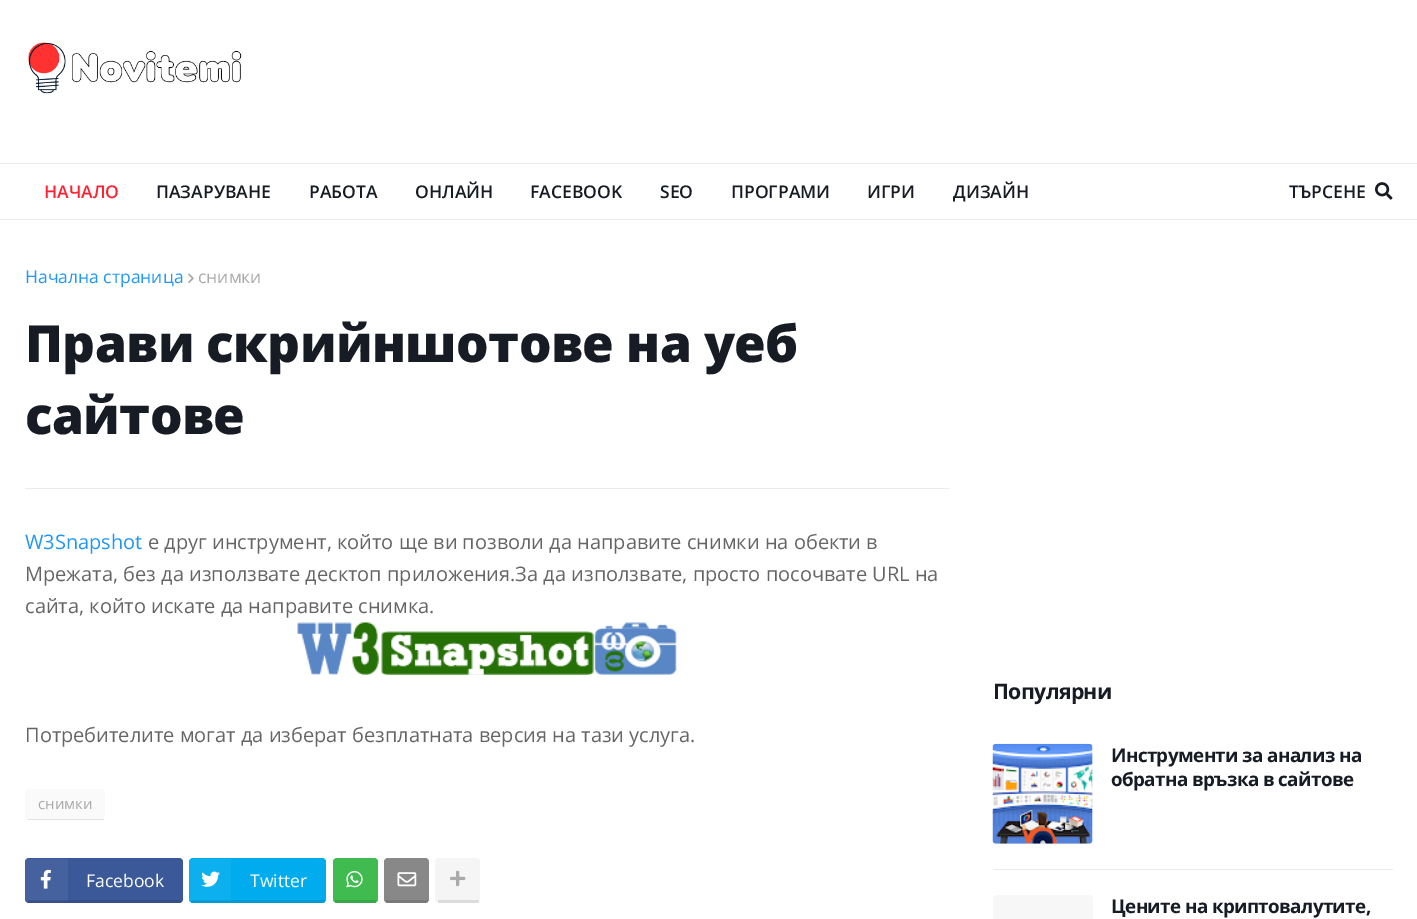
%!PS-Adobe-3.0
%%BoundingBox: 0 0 1417 919
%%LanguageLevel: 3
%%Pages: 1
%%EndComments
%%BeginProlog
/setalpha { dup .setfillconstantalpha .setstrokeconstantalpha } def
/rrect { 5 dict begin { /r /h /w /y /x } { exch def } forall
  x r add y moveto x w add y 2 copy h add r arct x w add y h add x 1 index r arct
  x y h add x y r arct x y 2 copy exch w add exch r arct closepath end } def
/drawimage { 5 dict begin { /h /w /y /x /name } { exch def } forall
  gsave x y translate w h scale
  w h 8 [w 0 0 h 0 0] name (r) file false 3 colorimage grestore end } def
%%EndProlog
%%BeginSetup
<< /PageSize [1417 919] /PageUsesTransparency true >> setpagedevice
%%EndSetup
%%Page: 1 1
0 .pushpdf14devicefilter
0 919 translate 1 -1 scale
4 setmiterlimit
1 setgray
0 0 1417 919 rectfill
0.922 setgray
0 163 1417 1 rectfill
(images/1.raw) 28 42 214 52 drawimage
0 219 1417 1 rectfill
(images/2.raw) 1375 182 18 18 drawimage
25 488 924 1 rectfill
(images/3.raw) 188 273 6 10 drawimage
(images/4.raw) 297 622 380 53 drawimage
0.98 setgray
25 789 80 31 4 rrect fill
0.1 setalpha
0 setgray
28 819 76 1 rectfill
1 setalpha
0.231 0.349 0.6 setrgbcolor
25 858 158 45 4 rrect fill
0.1 setalpha
0 setgray
28 900 153 3 rectfill
0.05 setalpha
1 setgray
25 859 43 42 rectfill
1 setalpha
(images/5.raw) 40 869 11 20 drawimage
0 0.675 0.933 setrgbcolor
189 858 137 45 4 rrect fill
0.1 setalpha
0 setgray
191 900 134 3 rectfill
0.05 setalpha
1 setgray
189 859 42 42 rectfill
1 setalpha
(images/6.raw) 201 871 19 16 drawimage
0.247 0.733 0.314 setrgbcolor
333 858 45 45 4 rrect fill
0.1 setalpha
0 setgray
335 900 41 3 rectfill
1 setalpha
(images/7.raw) 346 871 17 17 drawimage
0.533 setgray
384 858 45 45 4 rrect fill
0.1 setalpha
0 setgray
386 900 42 3 rectfill
1 setalpha
(images/8.raw) 397 872 20 15 drawimage
0.961 setgray
435 858 45 45 4 rrect fill
0.1 setalpha
0 setgray
438 900 41 3 rectfill
1 setalpha
(images/9.raw) 450 870 16 17 drawimage
0.969 setgray
993 744 100 100 4 rrect fill
(images/10.raw) 992 743 101 101 drawimage
0.922 setgray
993 869 400 1 rectfill
0.969 setgray
993 895 100 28 4 rrect fill
/OpenSans-SemiBold [17.5 0 0 -17.5 0 0] selectfont
1 0.133 0.196 setrgbcolor
44 198 moveto (НАЧАЛО) show
0.09 0.11 0.141 setrgbcolor
156 198 moveto (ПАЗАРУВАНЕ) show
309 198 moveto (РАБОТА) show
415 198 moveto (ОНЛАЙН) show
530 198 moveto (FACEBOOK) show
660 198 moveto (SEO) show
731 198 moveto (ПРОГРАМИ) show
867 198 moveto (ИГРИ) show
953 198 moveto (ДИЗАЙН) show
1289 198 moveto (ТЪРСЕНЕ) show
/OpenSans-Regular [17.5 0 0 -17.5 0 0] selectfont
0.129 0.588 0.953 setrgbcolor
25 283 moveto (Начална страница) show
0.667 setgray
198 283 moveto (снимки) show
/OpenSans-ExtraBold [51.25 0 0 -51.25 0 0] selectfont
0.09 0.11 0.141 setrgbcolor
25 362 moveto -0.6 0 (Прави скрийншотове на уеб) ashow
25 434 moveto -0.6 0 (сайтове) ashow
/OpenSans-Regular [20 0 0 -20 0 0] selectfont
0.129 0.588 0.953 setrgbcolor
25 549 moveto (W3Snapshot) show
0.396 setgray
148 549 moveto (е друг инструмент, който ще ви позволи да направите снимки на обекти в) show
25 581 moveto (Мрежата, без да използвате десктоп приложения.За да използвате, просто посочвате URL на) show
25 613 moveto (сайта, който искате да направите снимка.) show
25 742 moveto (Потребителите могат да изберат безплатната версия на тази услуга.) show
/OpenSans-Regular [15 0 0 -15 0 0] selectfont
0.667 setgray
38 809 moveto (снимки) show
/OpenSans-Regular [17.5 0 0 -17.5 0 0] selectfont
1 setgray
86 887 moveto (Facebook) show
250 887 moveto (Twitter) show
/OpenSans-Bold [21.25 0 0 -21.25 0 0] selectfont
0.09 0.11 0.141 setrgbcolor
993 699 moveto -0.6 0 (Популярни) ashow
/OpenSans-Bold [18.75 0 0 -18.75 0 0] selectfont
1111 762 moveto -0.6 0 (Инструменти за анализ на) ashow
1111 786 moveto -0.6 0 (обратна връзка в сайтове) ashow
1111 913 moveto -0.6 0 (Цените на криптовалутите,) ashow
.poppdf14devicefilter showpage
%%EOF
